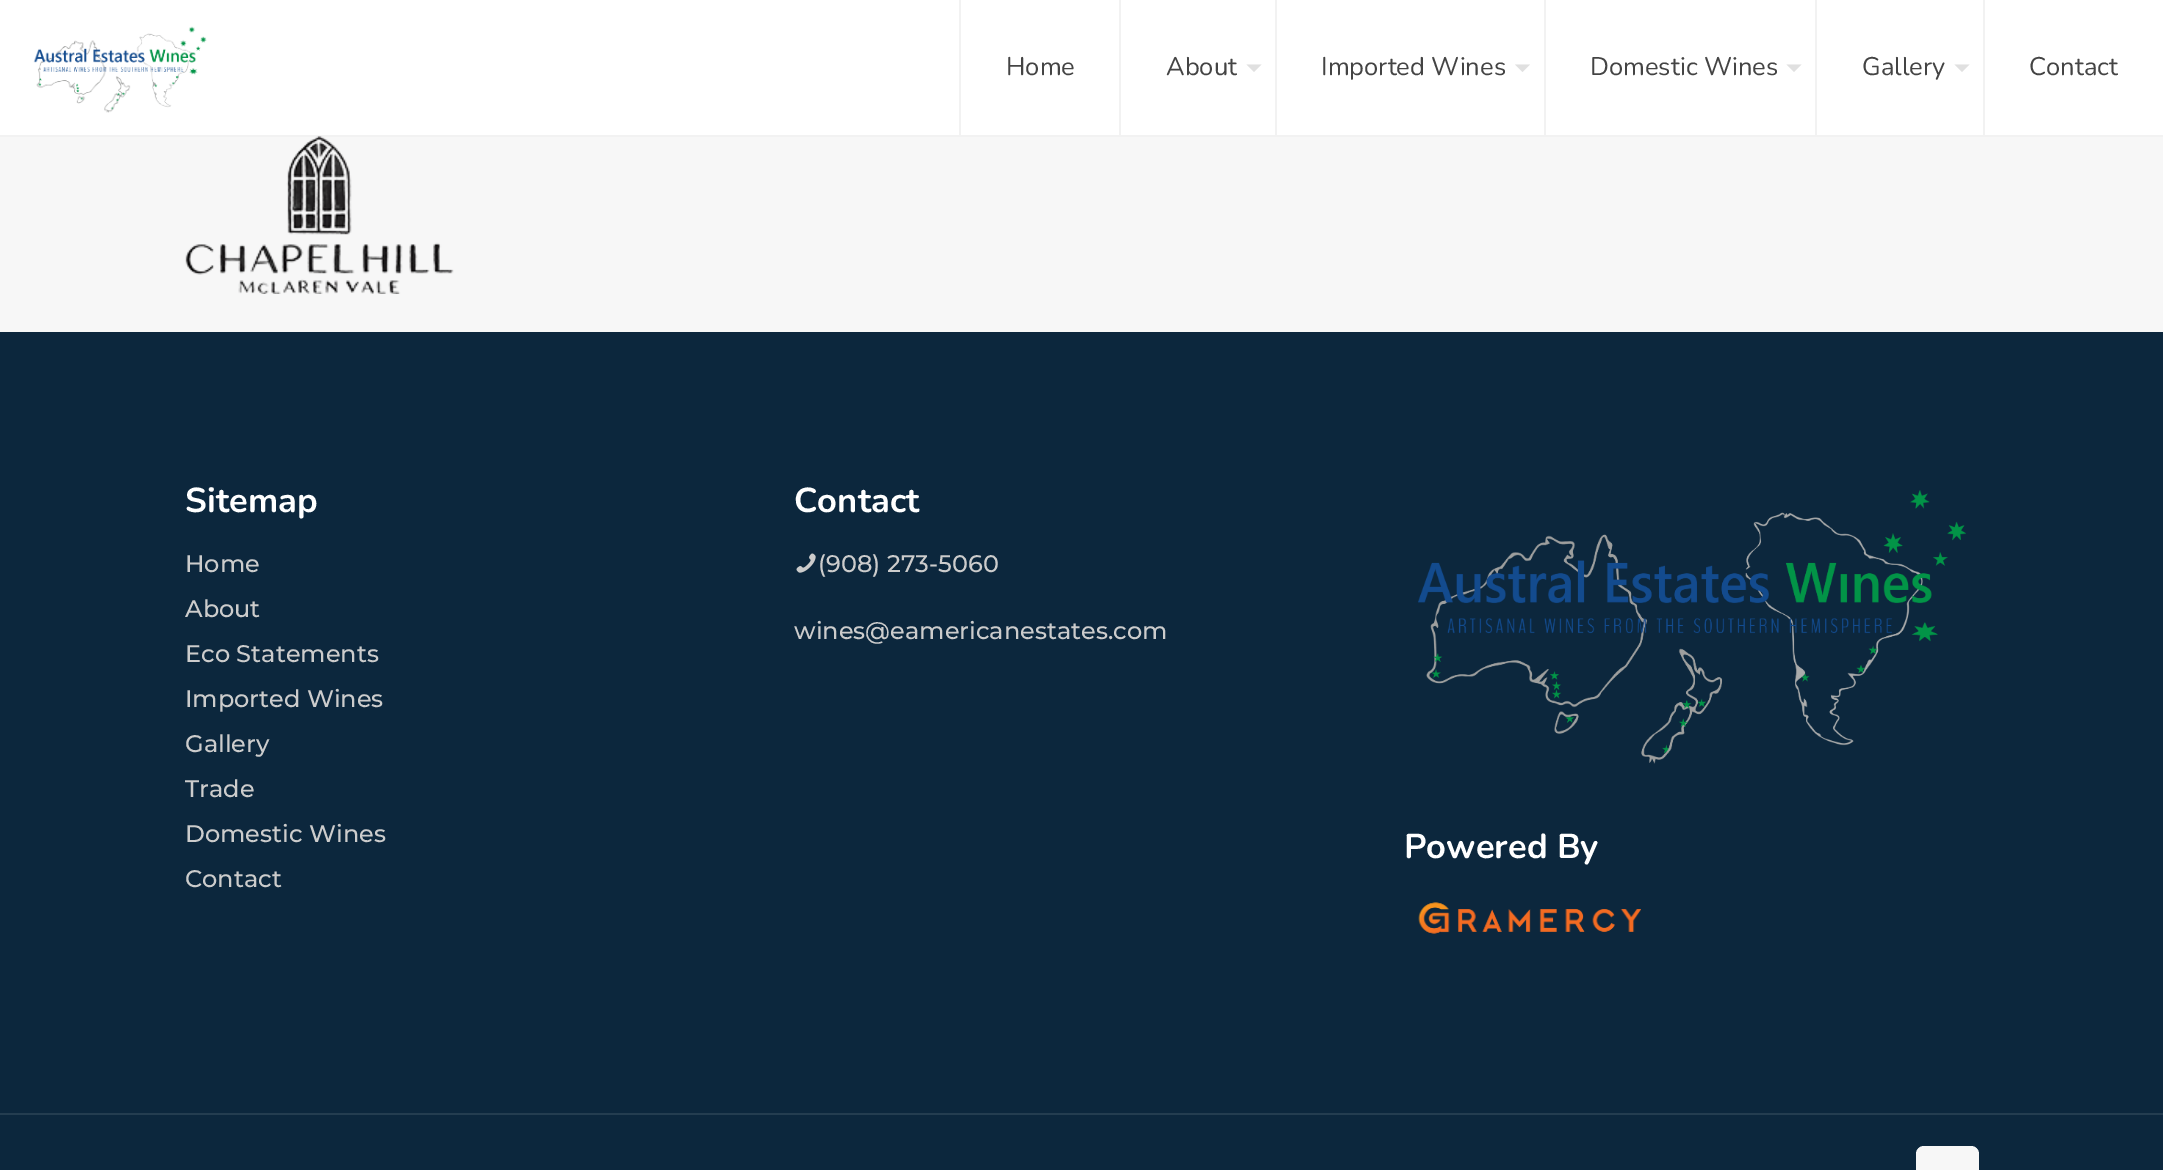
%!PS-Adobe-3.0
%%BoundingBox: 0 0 2163 1170
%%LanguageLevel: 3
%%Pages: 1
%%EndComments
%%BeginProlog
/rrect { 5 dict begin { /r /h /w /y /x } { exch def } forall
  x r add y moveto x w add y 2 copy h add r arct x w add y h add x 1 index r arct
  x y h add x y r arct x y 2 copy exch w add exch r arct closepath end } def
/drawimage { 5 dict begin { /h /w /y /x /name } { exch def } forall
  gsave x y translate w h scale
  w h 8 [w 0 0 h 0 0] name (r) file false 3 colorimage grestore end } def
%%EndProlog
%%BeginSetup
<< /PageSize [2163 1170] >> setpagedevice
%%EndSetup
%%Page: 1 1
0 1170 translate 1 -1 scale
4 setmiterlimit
0.969 setgray
0 0 2163 1170 rectfill
1 setgray
0 0 2163 135 rectfill
0.949 setgray
0 135 2163 2 rectfill
(images/1.raw) 33 26 174 87 drawimage
1119 0 2 135 rectfill
959 0 2 135 rectfill
1275 0 2 135 rectfill
0.878 setgray
newpath 1246.5 64.5 moveto 1261.5 64.5 lineto 1254 72 lineto closepath fill
0.949 setgray
1544 0 2 135 rectfill
0.878 setgray
newpath 1515 64.5 moveto 1530 64.5 lineto 1522.5 72 lineto closepath fill
0.949 setgray
1815 0 2 135 rectfill
0.878 setgray
newpath 1786.5 64.5 moveto 1801.5 64.5 lineto 1794 72 lineto closepath fill
0.949 setgray
1983 0 2 135 rectfill
0.878 setgray
newpath 1954.5 64.5 moveto 1969.5 64.5 lineto 1962 72 lineto closepath fill
(images/2.raw) 185 136 269 158 drawimage
0.047 0.153 0.239 setrgbcolor
0 332 2163 838 rectfill
(images/3.raw) 796 553 20 20 drawimage
(images/4.raw) 1418 490 548 274 drawimage
(images/5.raw) 1418 902 223 32 drawimage
0.141 0.239 0.314 setrgbcolor
0 1113 2163 2 rectfill
0.969 setgray
1916 1146 63 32 8 rrect fill
/Nunito-Regular [25.5 0 0 -25.5 0 0] selectfont
0.267 setgray
1006 75 moveto (Home) show
1166 75 moveto (About) show
1321 75 moveto (Imported Wines) show
1590 75 moveto (Domestic Wines) show
1862 75 moveto (Gallery) show
2029 75 moveto (Contact) show
/Nunito-Bold [34.5 0 0 -34.5 0 0] selectfont
1 setgray
185 512 moveto (Sitemap) show
/Montserrat-Medium [24 0 0 -24 0 0] selectfont
0.8 setgray
185 572 moveto (Home) show
185 617 moveto (About) show
185 662 moveto (Eco Statements) show
185 707 moveto (Imported Wines) show
185 752 moveto (Gallery) show
185 797 moveto (Trade) show
185 842 moveto (Domestic Wines) show
185 887 moveto (Contact) show
/Nunito-Bold [34.5 0 0 -34.5 0 0] selectfont
1 setgray
794 512 moveto (Contact) show
/Montserrat-Medium [24 0 0 -24 0 0] selectfont
0.8 setgray
818 572 moveto (\(908\) 273-5060) show
794 639 moveto (wines@eamericanestates.com) show
/Nunito-Bold [34.5 0 0 -34.5 0 0] selectfont
1 setgray
1404 858 moveto (Powered By) show
showpage
%%EOF
